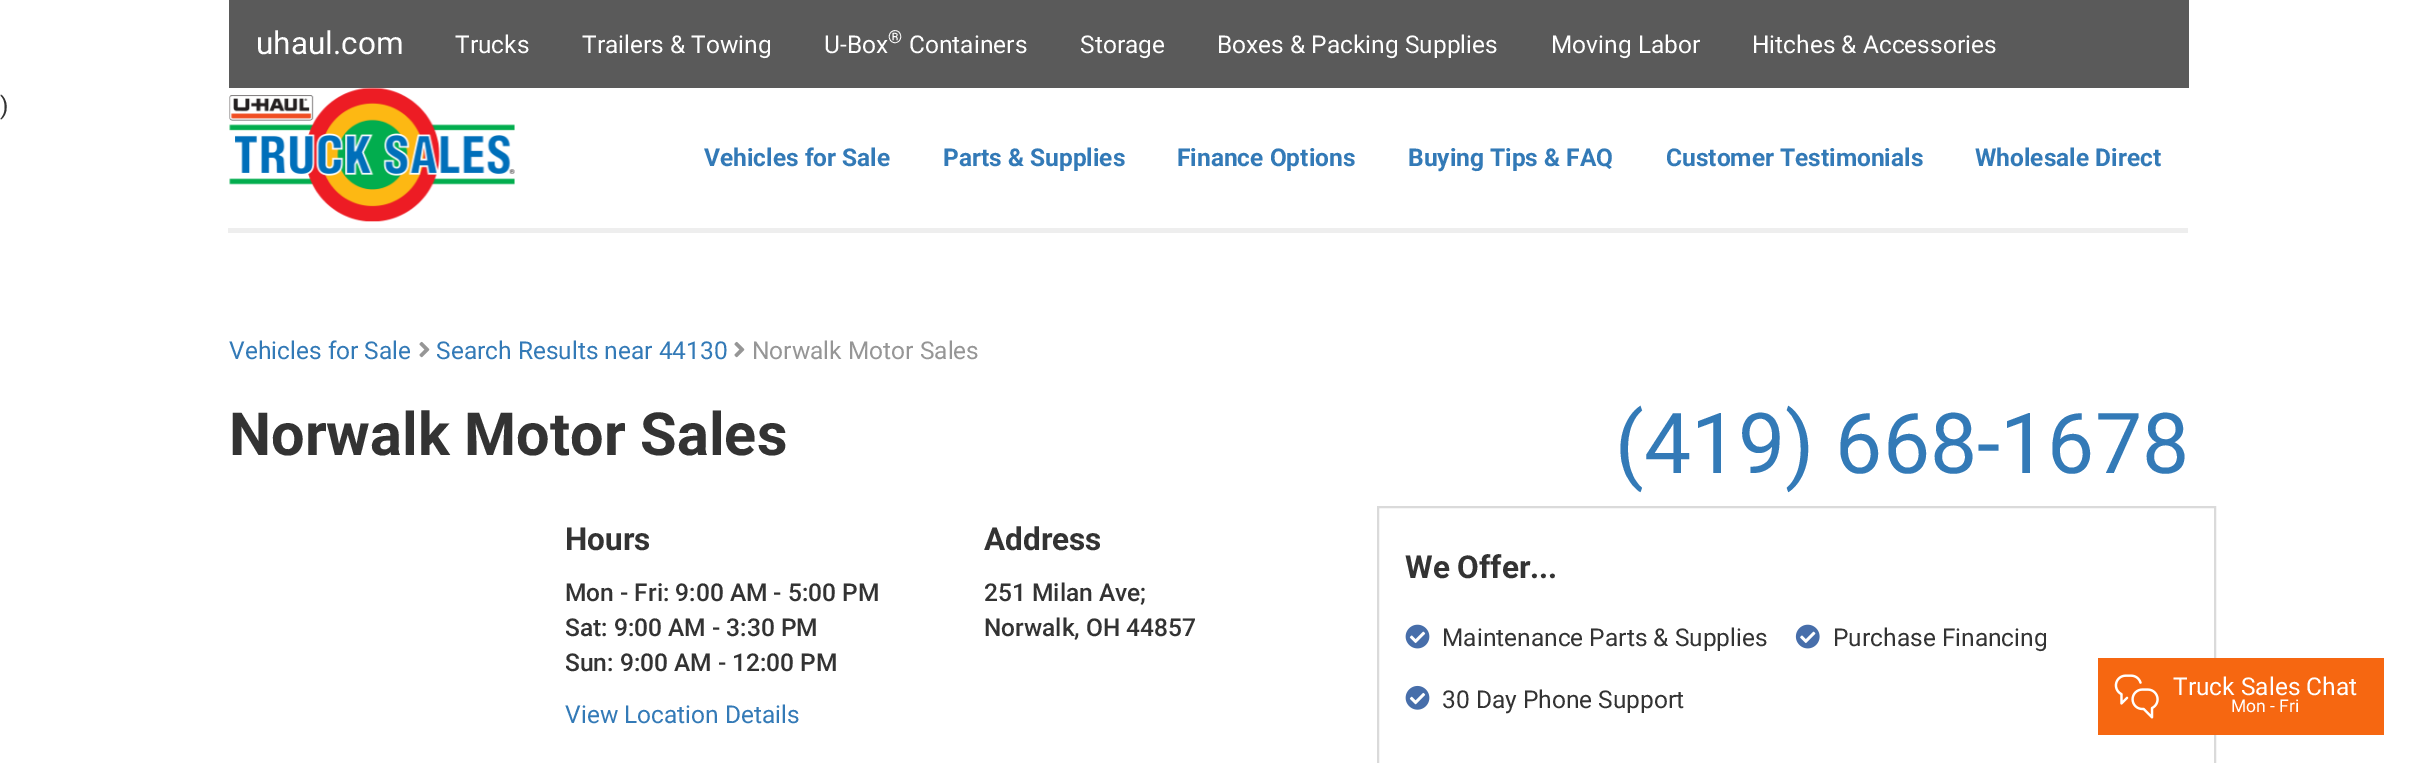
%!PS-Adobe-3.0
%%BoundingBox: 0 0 2417 763
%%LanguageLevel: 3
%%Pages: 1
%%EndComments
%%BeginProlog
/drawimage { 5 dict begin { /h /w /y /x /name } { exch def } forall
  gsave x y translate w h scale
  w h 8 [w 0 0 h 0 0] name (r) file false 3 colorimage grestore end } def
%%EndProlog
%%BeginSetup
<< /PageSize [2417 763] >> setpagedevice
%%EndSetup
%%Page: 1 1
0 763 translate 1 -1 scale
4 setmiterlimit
1 setgray
0 0 2417 763 rectfill
0.353 setgray
229 0 1960 88 rectfill
(images/1.raw) 229 87 286 135 drawimage
0.933 setgray
228 228 1960 5 rectfill
(images/2.raw) 419 341 11 17 drawimage
(images/2.raw) 734 341 11 17 drawimage
0.855 setgray
2 setlinewidth
1378 507 837 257 rectstroke
(images/3.raw) 1405 624 25 25 drawimage
(images/4.raw) 1405 685 25 25 drawimage
(images/5.raw) 1795 624 25 25 drawimage
0.965 0.404 0.067 setrgbcolor
2098 658 286 77 rectfill
(images/6.raw) 2114 674 45 45 drawimage
/Roboto-Regular [31.5 0 0 -31.5 0 0] selectfont
1 setgray
256 54 moveto (uhaul.com) show
/Roboto-Regular [24.5 0 0 -24.5 0 0] selectfont
455 53 moveto (Trucks) show
582 53 moveto (Trailers & Towing) show
824 53 moveto (U-Box) show
/Roboto-Regular [18 0 0 -18 0 0] selectfont
888 43 moveto (®) show
/Roboto-Regular [24.5 0 0 -24.5 0 0] selectfont
909 53 moveto (Containers) show
1080 53 moveto (Storage) show
1217 53 moveto (Boxes & Packing Supplies) show
1551 53 moveto (Moving Labor) show
1752 53 moveto (Hitches & Accessories) show
0.2 setgray
0 114 moveto (\)) show
/Roboto-Bold [24.5 0 0 -24.5 0 0] selectfont
0.2 0.478 0.718 setrgbcolor
704 166 moveto (Vehicles for Sale) show
943 166 moveto (Parts & Supplies) show
1177 166 moveto (Finance Options) show
1408 166 moveto (Buying Tips & FAQ) show
1666 166 moveto (Customer Testimonials) show
1975 166 moveto (Wholesale Direct) show
/Roboto-Regular [24.5 0 0 -24.5 0 0] selectfont
229 359 moveto (Vehicles for Sale) show
436 359 moveto (Search Results near 44130) show
0.588 setgray
752 359 moveto (Norwalk Motor Sales) show
/Roboto-Bold [59.5 0 0 -59.5 0 0] selectfont
0.2 setgray
229 455 moveto (Norwalk Motor Sales) show
/Roboto-Regular [84 0 0 -84 0 0] selectfont
0.2 0.478 0.718 setrgbcolor
1615 473 moveto (\(419\) 668-1678) show
/Roboto-Bold [31.5 0 0 -31.5 0 0] selectfont
0.2 setgray
565 550 moveto (Hours) show
/Roboto-Medium [24.5 0 0 -24.5 0 0] selectfont
565 601 moveto (Mon - Fri: 9:00 AM - 5:00 PM) show
565 636 moveto (Sat: 9:00 AM - 3:30 PM) show
565 671 moveto (Sun: 9:00 AM - 12:00 PM) show
/Roboto-Bold [31.5 0 0 -31.5 0 0] selectfont
984 550 moveto (Address) show
/Roboto-Medium [24.5 0 0 -24.5 0 0] selectfont
984 601 moveto (251 Milan Ave;) show
984 636 moveto (Norwalk, OH 44857) show
/Roboto-Regular [24.5 0 0 -24.5 0 0] selectfont
0.2 0.478 0.718 setrgbcolor
565 723 moveto (View Location Details) show
/Roboto-Bold [31.5 0 0 -31.5 0 0] selectfont
0.2 setgray
1405 578 moveto (We Offer...) show
/Roboto-Regular [24.5 0 0 -24.5 0 0] selectfont
1442 646 moveto (Maintenance Parts & Supplies) show
1442 708 moveto (30 Day Phone Support) show
1833 646 moveto (Purchase Financing) show
1 setgray
2173 695 moveto (Truck Sales Chat) show
/Roboto-Regular [17.5 0 0 -17.5 0 0] selectfont
2231 712 moveto (Mon - Fri) show
showpage
%%EOF
